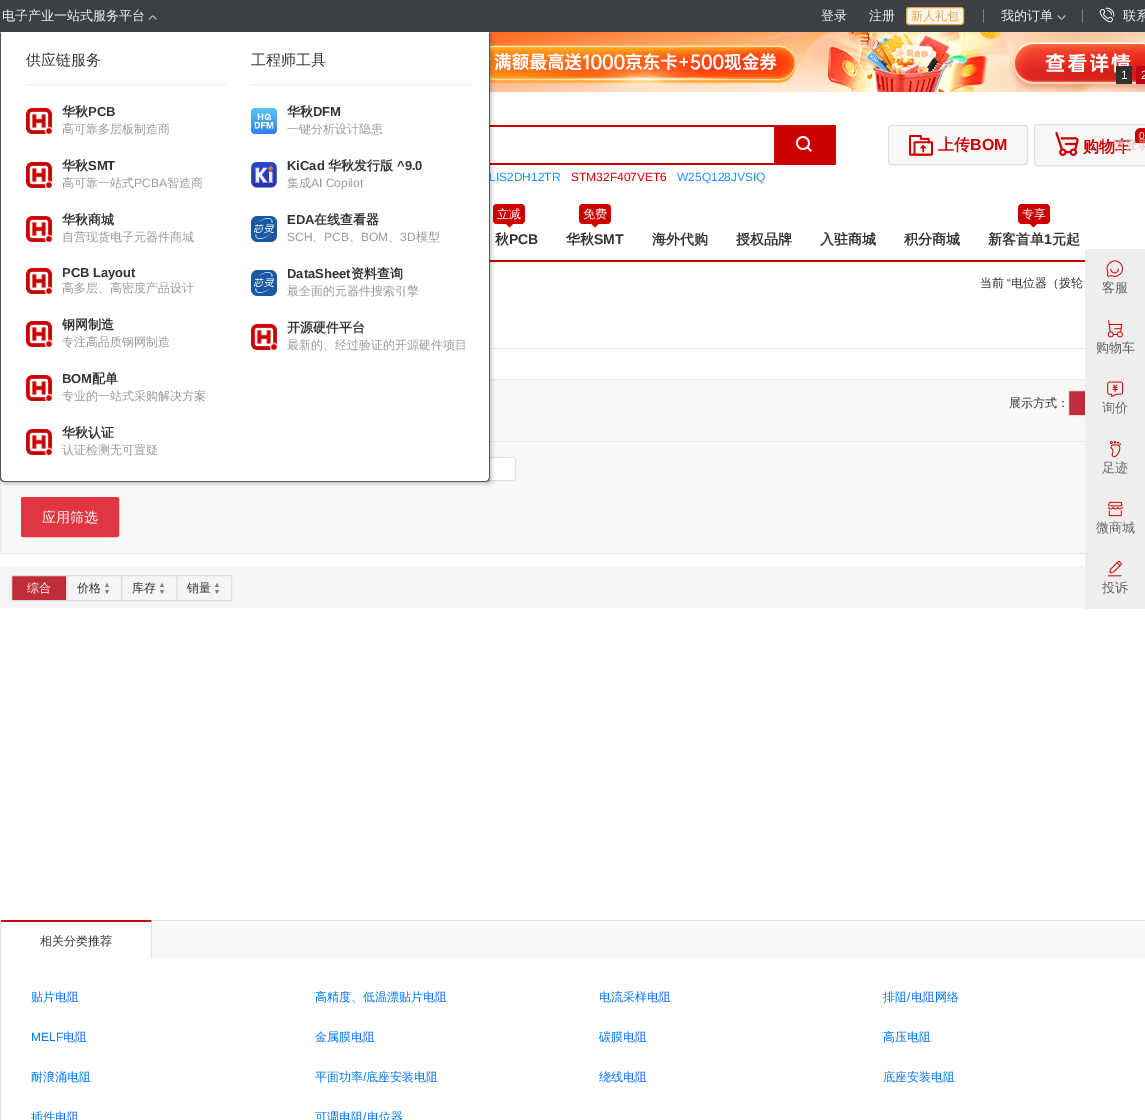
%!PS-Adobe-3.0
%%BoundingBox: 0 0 1145 1120
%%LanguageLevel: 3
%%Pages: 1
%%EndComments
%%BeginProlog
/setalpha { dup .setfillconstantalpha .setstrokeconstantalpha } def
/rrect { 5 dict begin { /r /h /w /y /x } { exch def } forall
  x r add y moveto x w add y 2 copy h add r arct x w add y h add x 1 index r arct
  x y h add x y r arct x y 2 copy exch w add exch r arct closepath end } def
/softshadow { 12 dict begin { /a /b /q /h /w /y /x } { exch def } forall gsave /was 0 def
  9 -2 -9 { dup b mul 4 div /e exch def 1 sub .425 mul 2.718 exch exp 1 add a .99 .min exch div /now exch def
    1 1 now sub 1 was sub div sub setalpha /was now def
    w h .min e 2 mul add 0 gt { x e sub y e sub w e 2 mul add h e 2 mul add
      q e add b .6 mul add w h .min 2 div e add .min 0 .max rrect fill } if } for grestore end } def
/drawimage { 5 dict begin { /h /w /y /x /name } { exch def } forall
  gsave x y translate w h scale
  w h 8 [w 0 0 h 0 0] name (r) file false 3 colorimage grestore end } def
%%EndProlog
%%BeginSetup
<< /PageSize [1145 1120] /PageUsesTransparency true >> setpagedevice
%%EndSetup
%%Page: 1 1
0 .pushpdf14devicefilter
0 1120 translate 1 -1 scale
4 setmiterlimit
1 setgray
0 0 1145 1120 rectfill
0.235 0.251 0.263 setrgbcolor
0 0 1145 32 rectfill
(images/1.raw) 149 15 8 5 drawimage
(images/8.raw) 490 32 655 60 drawimage
0.8 0 0 setrgbcolor
286 125 550 40 2 rrect fill
1 setgray
490 127 284 36 rectfill
0.8 0 0 setrgbcolor
490 260 595 2 rectfill
493 204 32 20 4 rrect fill
0.914 setgray
490 348 595 1 rectfill
0.973 setgray
1 380 1084 173 rectfill
0.914 setgray
0.5 379.5 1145 174 rectstroke
490 441 595 1 rectfill
0.878 setgray
469.5 457.5 46 23 2.5 rrect stroke
1 setgray
489 458 26 22 rectfill
0 setgray
2 34 490 450 4 2 0.2 softshadow
1 setgray
newpath 0 32 moveto 490 32 lineto 490 478 lineto 490 480 488 482 486 482 curveto 4 482 lineto 2 482 0 480 0 478 curveto closepath fill
0.333 setgray
newpath 490 32 moveto 489 33 lineto 489 478 lineto 488 480 lineto 489 481 lineto 490 478 lineto closepath fill
newpath 4 482 moveto 486 482 lineto 489 481 lineto 488 480 lineto 486 481 lineto 4 481 lineto 2 480 lineto 1 481 lineto closepath fill
newpath 1 33 moveto 0 32 lineto 0 479 lineto 1 481 lineto 2 480 lineto 1 478 lineto closepath fill
0.922 setgray
26 84 200 1 rectfill
(images/2.raw) 26 108 26 26 drawimage
(images/2.raw) 26 162 26 26 drawimage
(images/2.raw) 26 216 26 26 drawimage
(images/2.raw) 26 268 26 26 drawimage
(images/2.raw) 26 321 26 26 drawimage
(images/2.raw) 26 375 26 26 drawimage
(images/2.raw) 26 429 26 26 drawimage
251 84 220 1 rectfill
(images/3.raw) 251 108 26 26 drawimage
(images/4.raw) 251 162 26 26 drawimage
(images/5.raw) 251 216 26 26 drawimage
(images/5.raw) 251 270 26 26 drawimage
(images/2.raw) 251 324 26 26 drawimage
0.988 0.961 0.922 setrgbcolor
906.5 7.5 57 17 2.5 rrect gsave fill grestore
0.902 0.635 0.235 setrgbcolor
stroke
0.498 setgray
983 9 1 14 rectfill
(images/6.raw) 1057 15 9 5 drawimage
1082 9 1 14 rectfill
(images/7.raw) 1099 7 16 16 drawimage
0.184 setgray
1116 66 16 18 rectfill
0.761 0 0.078 setrgbcolor
1136 66 9 18 rectfill
0.973 setgray
888.5 125.5 139 39 2.5 rrect gsave fill grestore
0.875 setgray
stroke
(images/9.raw) 909 135 24 21 drawimage
0.973 setgray
1034.5 124.5 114 41 2.5 rrect gsave fill grestore
0.875 setgray
stroke
(images/10.raw) 1055 132 24 24 drawimage
0.8 0 0 setrgbcolor
newpath 1141 128 moveto 1143 128 lineto 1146.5 128 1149 130.5 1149 134 curveto 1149 137 lineto 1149 140.5 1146.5 143 1143 143 curveto 1135 143 lineto 1135 134 lineto 1135 130.5 1137.5 128 1141 128 curveto closepath fill
(images/11.raw) 796 136 16 16 drawimage
newpath 509.5 220.5 moveto 513 224 lineto 509.5 227.5 lineto 506 224 lineto closepath fill
579 204 32 20 4 rrect fill
newpath 595 220.5 moveto 598.5 224 lineto 595 227.5 lineto 591.5 224 lineto closepath fill
1018 204 32 20 4 rrect fill
newpath 1033.5 220.5 moveto 1037 224 lineto 1033.5 227.5 lineto 1030 224 lineto closepath fill
0.753 0.173 0.22 setrgbcolor
1069 391 16 24 rectfill
0.878 setgray
1068.5 390.5 55 25 rectstroke
0.878 0.212 0.255 setrgbcolor
21.5 497.5 97 39 1.5 rrect gsave fill grestore
stroke
0.961 setgray
0 566 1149 42 4 rrect fill
0.753 0.173 0.22 setrgbcolor
newpath 11.5 575.5 moveto 66.5 575.5 lineto 66.5 600.5 lineto 11.5 600.5 lineto closepath gsave fill grestore
0.878 setgray
stroke
66.5 575.5 55 25 rectstroke
0.498 setgray
newpath 109 587 moveto 105 587 lineto 107 583 lineto closepath 105 590 moveto 109 590 lineto 107 594 lineto closepath fill
0.878 setgray
121.5 575.5 55 25 rectstroke
0.498 setgray
newpath 164 587 moveto 160 587 lineto 162 583 lineto closepath 160 590 moveto 164 590 lineto 162 594 lineto closepath fill
0.878 setgray
176.5 575.5 55 25 rectstroke
0.498 setgray
newpath 219 587 moveto 215 587 lineto 217 583 lineto closepath 215 590 moveto 219 590 lineto 217 594 lineto closepath fill
0.894 setgray
0.5 920.5 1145 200 rectstroke
0.976 setgray
152 921 993 38 rectfill
1 setgray
1 920 151 1 rectfill
0.8 0 0 setrgbcolor
newpath 1 920 moveto 152 920 lineto 151 922 lineto 1 922 lineto closepath fill
0.894 setgray
newpath 152 920 moveto 152 959 lineto 151 958 lineto 151 922 lineto closepath fill
0.933 setgray
1085 249 60 360 rectfill
(images/12.raw) 1106 260 17 17 drawimage
(images/13.raw) 1107 320 16 18 drawimage
(images/14.raw) 1107 381 17 16 drawimage
(images/15.raw) 1109 441 12 17 drawimage
(images/16.raw) 1107 501 16 16 drawimage
(images/17.raw) 1107 560 15 17 drawimage
/WenQuanYiZenHei-Medium [13 0 0 -13 0 0] selectfont
0.949 setgray
2 20 moveto (电子产业一站式服务平台) show
/WenQuanYiZenHei-Medium [15 0 0 -15 0 0] selectfont
0.2 setgray
26 65 moveto (供应链服务) show
/WenQuanYiZenHei-Bold [13 0 0 -13 0 0] selectfont
62 116 moveto (华秋) show
/LiberationSans-Bold [13 0 0 -13 0 0] selectfont
88 116 moveto (PCB) show
/WenQuanYiZenHei-Medium [12 0 0 -12 0 0] selectfont
0.6 setgray
62 133 moveto (高可靠多层板制造商) show
/WenQuanYiZenHei-Bold [13 0 0 -13 0 0] selectfont
0.2 setgray
62 170 moveto (华秋) show
/LiberationSans-Bold [13 0 0 -13 0 0] selectfont
88 170 moveto (SMT) show
/WenQuanYiZenHei-Medium [12 0 0 -12 0 0] selectfont
0.6 setgray
62 187 moveto (高可靠一站式) show
/LiberationSans-Regular [12 0 0 -12 0 0] selectfont
134 187 moveto (PCBA) show
/WenQuanYiZenHei-Medium [12 0 0 -12 0 0] selectfont
167 187 moveto (智造商) show
/WenQuanYiZenHei-Bold [13 0 0 -13 0 0] selectfont
0.2 setgray
62 224 moveto (华秋商城) show
/WenQuanYiZenHei-Medium [12 0 0 -12 0 0] selectfont
0.6 setgray
62 241 moveto (自营现货电子元器件商城) show
/LiberationSans-Bold [13 0 0 -13 0 0] selectfont
0.2 setgray
62 277 moveto (PCB Layout) show
/WenQuanYiZenHei-Medium [12 0 0 -12 0 0] selectfont
0.6 setgray
62 292 moveto (高多层、高密度产品设计) show
/WenQuanYiZenHei-Bold [13 0 0 -13 0 0] selectfont
0.2 setgray
62 329 moveto (钢网制造) show
/WenQuanYiZenHei-Medium [12 0 0 -12 0 0] selectfont
0.6 setgray
62 346 moveto (专注高品质钢网制造) show
/LiberationSans-Bold [13 0 0 -13 0 0] selectfont
0.2 setgray
62 383 moveto (BOM) show
/WenQuanYiZenHei-Bold [13 0 0 -13 0 0] selectfont
92 383 moveto (配单) show
/WenQuanYiZenHei-Medium [12 0 0 -12 0 0] selectfont
0.6 setgray
62 400 moveto (专业的一站式采购解决方案) show
/WenQuanYiZenHei-Bold [13 0 0 -13 0 0] selectfont
0.2 setgray
62 437 moveto (华秋认证) show
/WenQuanYiZenHei-Medium [12 0 0 -12 0 0] selectfont
0.6 setgray
62 454 moveto (认证检测无可置疑) show
/WenQuanYiZenHei-Medium [15 0 0 -15 0 0] selectfont
0.2 setgray
251 65 moveto (工程师工具) show
/WenQuanYiZenHei-Bold [13 0 0 -13 0 0] selectfont
287 116 moveto (华秋) show
/LiberationSans-Bold [13 0 0 -13 0 0] selectfont
313 116 moveto (DFM) show
/WenQuanYiZenHei-Medium [12 0 0 -12 0 0] selectfont
0.6 setgray
287 133 moveto (一键分析设计隐患) show
/LiberationSans-Bold [13 0 0 -13 0 0] selectfont
0.2 setgray
287 170 moveto (KiCad) show
/WenQuanYiZenHei-Bold [13 0 0 -13 0 0] selectfont
328 170 moveto (华秋发行版) show
/LiberationSans-Bold [13 0 0 -13 0 0] selectfont
397 170 moveto (^9.0) show
/WenQuanYiZenHei-Medium [12 0 0 -12 0 0] selectfont
0.6 setgray
287 187 moveto (集成) show
/LiberationSans-Regular [12 0 0 -12 0 0] selectfont
311 187 moveto (AI Copilot) show
/LiberationSans-Bold [13 0 0 -13 0 0] selectfont
0.2 setgray
287 224 moveto (EDA) show
/WenQuanYiZenHei-Bold [13 0 0 -13 0 0] selectfont
314 224 moveto (在线查看器) show
/LiberationSans-Regular [12 0 0 -12 0 0] selectfont
0.6 setgray
287 241 moveto (SCH) show
/WenQuanYiZenHei-Medium [12 0 0 -12 0 0] selectfont
312 241 moveto (、) show
/LiberationSans-Regular [12 0 0 -12 0 0] selectfont
324 241 moveto (PCB) show
/WenQuanYiZenHei-Medium [12 0 0 -12 0 0] selectfont
349 241 moveto (、) show
/LiberationSans-Regular [12 0 0 -12 0 0] selectfont
361 241 moveto (BOM) show
/WenQuanYiZenHei-Medium [12 0 0 -12 0 0] selectfont
388 241 moveto (、) show
/LiberationSans-Regular [12 0 0 -12 0 0] selectfont
400 241 moveto (3D) show
/WenQuanYiZenHei-Medium [12 0 0 -12 0 0] selectfont
416 241 moveto (模型) show
/LiberationSans-Bold [13 0 0 -13 0 0] selectfont
0.2 setgray
287 278 moveto (DataSheet) show
/WenQuanYiZenHei-Bold [13 0 0 -13 0 0] selectfont
351 278 moveto (资料查询) show
/WenQuanYiZenHei-Medium [12 0 0 -12 0 0] selectfont
0.6 setgray
287 295 moveto (最全面的元器件搜索引擎) show
/WenQuanYiZenHei-Bold [13 0 0 -13 0 0] selectfont
0.2 setgray
287 332 moveto (开源硬件平台) show
/WenQuanYiZenHei-Medium [12 0 0 -12 0 0] selectfont
0.6 setgray
287 349 moveto (最新的、经过验证的开源硬件项目) show
/WenQuanYiZenHei-Medium [13 0 0 -13 0 0] selectfont
0.949 setgray
821 20 moveto (登录) show
869 20 moveto (注册) show
/WenQuanYiZenHei-Medium [12 0 0 -12 0 0] selectfont
0.902 0.635 0.235 setrgbcolor
911 20 moveto (新人礼包) show
/WenQuanYiZenHei-Medium [13 0 0 -13 0 0] selectfont
0.949 setgray
1001 20 moveto (我的订单) show
1123 20 moveto (联系) show
/LiberationSans-Regular [12 0 0 -12 0 0] selectfont
1 setgray
1121 79 moveto (1) show
1141 79 moveto (2) show
/WenQuanYiZenHei-Bold [16 0 0 -16 0 0] selectfont
0.8 0 0 setrgbcolor
938 150 moveto (上传) show
/LiberationSans-Bold [16 0 0 -16 0 0] selectfont
970 150 moveto (BOM) show
/LiberationSans-Regular [10 0 0 -10 0 0] selectfont
1 setgray
1139 139 moveto (0) show
/WenQuanYiZenHei-Bold [16 0 0 -16 0 0] selectfont
0.8 0 0 setrgbcolor
1083 152 moveto (购物车) show
/WenQuanYiZenHei-Medium [12 0 0 -12 0 0] selectfont
0.929 0.729 0.729 setrgbcolor
1113 149 moveto (请登录) show
/LiberationSans-Regular [12 0 0 -12 0 0] selectfont
0.118 0.565 1 setrgbcolor
489 181 moveto (LIS2DH12TR) show
0.867 0 0 setrgbcolor
571 181 moveto (STM32F407VET6) show
0.118 0.565 1 setrgbcolor
677 181 moveto (W25Q128JVSIQ) show
/WenQuanYiZenHei-Medium [12 0 0 -12 0 0] selectfont
1 setgray
497 218 moveto (立减) show
/WenQuanYiZenHei-Bold [14 0 0 -14 0 0] selectfont
0.2 setgray
495 244 moveto (秋) show
/LiberationSans-Bold [14 0 0 -14 0 0] selectfont
509 244 moveto (PCB) show
/WenQuanYiZenHei-Medium [12 0 0 -12 0 0] selectfont
1 setgray
583 218 moveto (免费) show
/WenQuanYiZenHei-Bold [14 0 0 -14 0 0] selectfont
0.2 setgray
566 244 moveto (华秋) show
/LiberationSans-Bold [14 0 0 -14 0 0] selectfont
594 244 moveto (SMT) show
/WenQuanYiZenHei-Bold [14 0 0 -14 0 0] selectfont
652 244 moveto (海外代购) show
736 244 moveto (授权品牌) show
820 244 moveto (入驻商城) show
904 244 moveto (积分商城) show
/WenQuanYiZenHei-Medium [12 0 0 -12 0 0] selectfont
1 setgray
1022 218 moveto (专享) show
/WenQuanYiZenHei-Bold [14 0 0 -14 0 0] selectfont
0.2 setgray
988 244 moveto (新客首单) show
/LiberationSans-Bold [14 0 0 -14 0 0] selectfont
1044 244 moveto (1) show
/WenQuanYiZenHei-Bold [14 0 0 -14 0 0] selectfont
1052 244 moveto (元起) show
/WenQuanYiZenHei-Medium [12 0 0 -12 0 0] selectfont
980 287 moveto (当前) show
/LiberationSans-Regular [12 0 0 -12 0 0] selectfont
1007 287 moveto (“) show
/WenQuanYiZenHei-Medium [12 0 0 -12 0 0] selectfont
1011 287 moveto (电位器（拨轮) show
1009 407 moveto (展示方式：) show
/WenQuanYiZenHei-Medium [14 0 0 -14 0 0] selectfont
1 setgray
42 522 moveto (应用筛选) show
/WenQuanYiZenHei-Medium [12 0 0 -12 0 0] selectfont
27 592 moveto (综合) show
0.2 setgray
77 592 moveto (价格) show
132 592 moveto (库存) show
187 592 moveto (销量) show
40 945 moveto (相关分类推荐) show
0 0.467 1 setrgbcolor
31 1001 moveto (贴片电阻) show
315 1001 moveto (高精度、低温漂贴片电阻) show
599 1001 moveto (电流采样电阻) show
883 1001 moveto (排阻 电阻网络) show
/LiberationSans-Regular [12 0 0 -12 0 0] selectfont
907 1001 moveto (/) show
31 1041 moveto (MELF) show
/WenQuanYiZenHei-Medium [12 0 0 -12 0 0] selectfont
63 1041 moveto (电阻) show
315 1041 moveto (金属膜电阻) show
599 1041 moveto (碳膜电阻) show
883 1041 moveto (高压电阻) show
31 1081 moveto (耐浪涌电阻) show
315 1081 moveto (平面功率) show
/LiberationSans-Regular [12 0 0 -12 0 0] selectfont
363 1081 moveto (/) show
/WenQuanYiZenHei-Medium [12 0 0 -12 0 0] selectfont
366 1081 moveto (底座安装电阻) show
599 1081 moveto (绕线电阻) show
883 1081 moveto (底座安装电阻) show
31 1121 moveto (插件电阻) show
315 1121 moveto (可调电阻 电位器) show
/LiberationSans-Regular [12 0 0 -12 0 0] selectfont
363 1121 moveto (/) show
/WenQuanYiZenHei-Medium [13 0 0 -13 0 0] selectfont
0.4 setgray
1102 292 moveto (客服) show
1096 352 moveto (购物车) show
1102 412 moveto (询价) show
1102 472 moveto (足迹) show
1096 532 moveto (微商城) show
1102 592 moveto (投诉) show
.poppdf14devicefilter showpage
%%EOF
